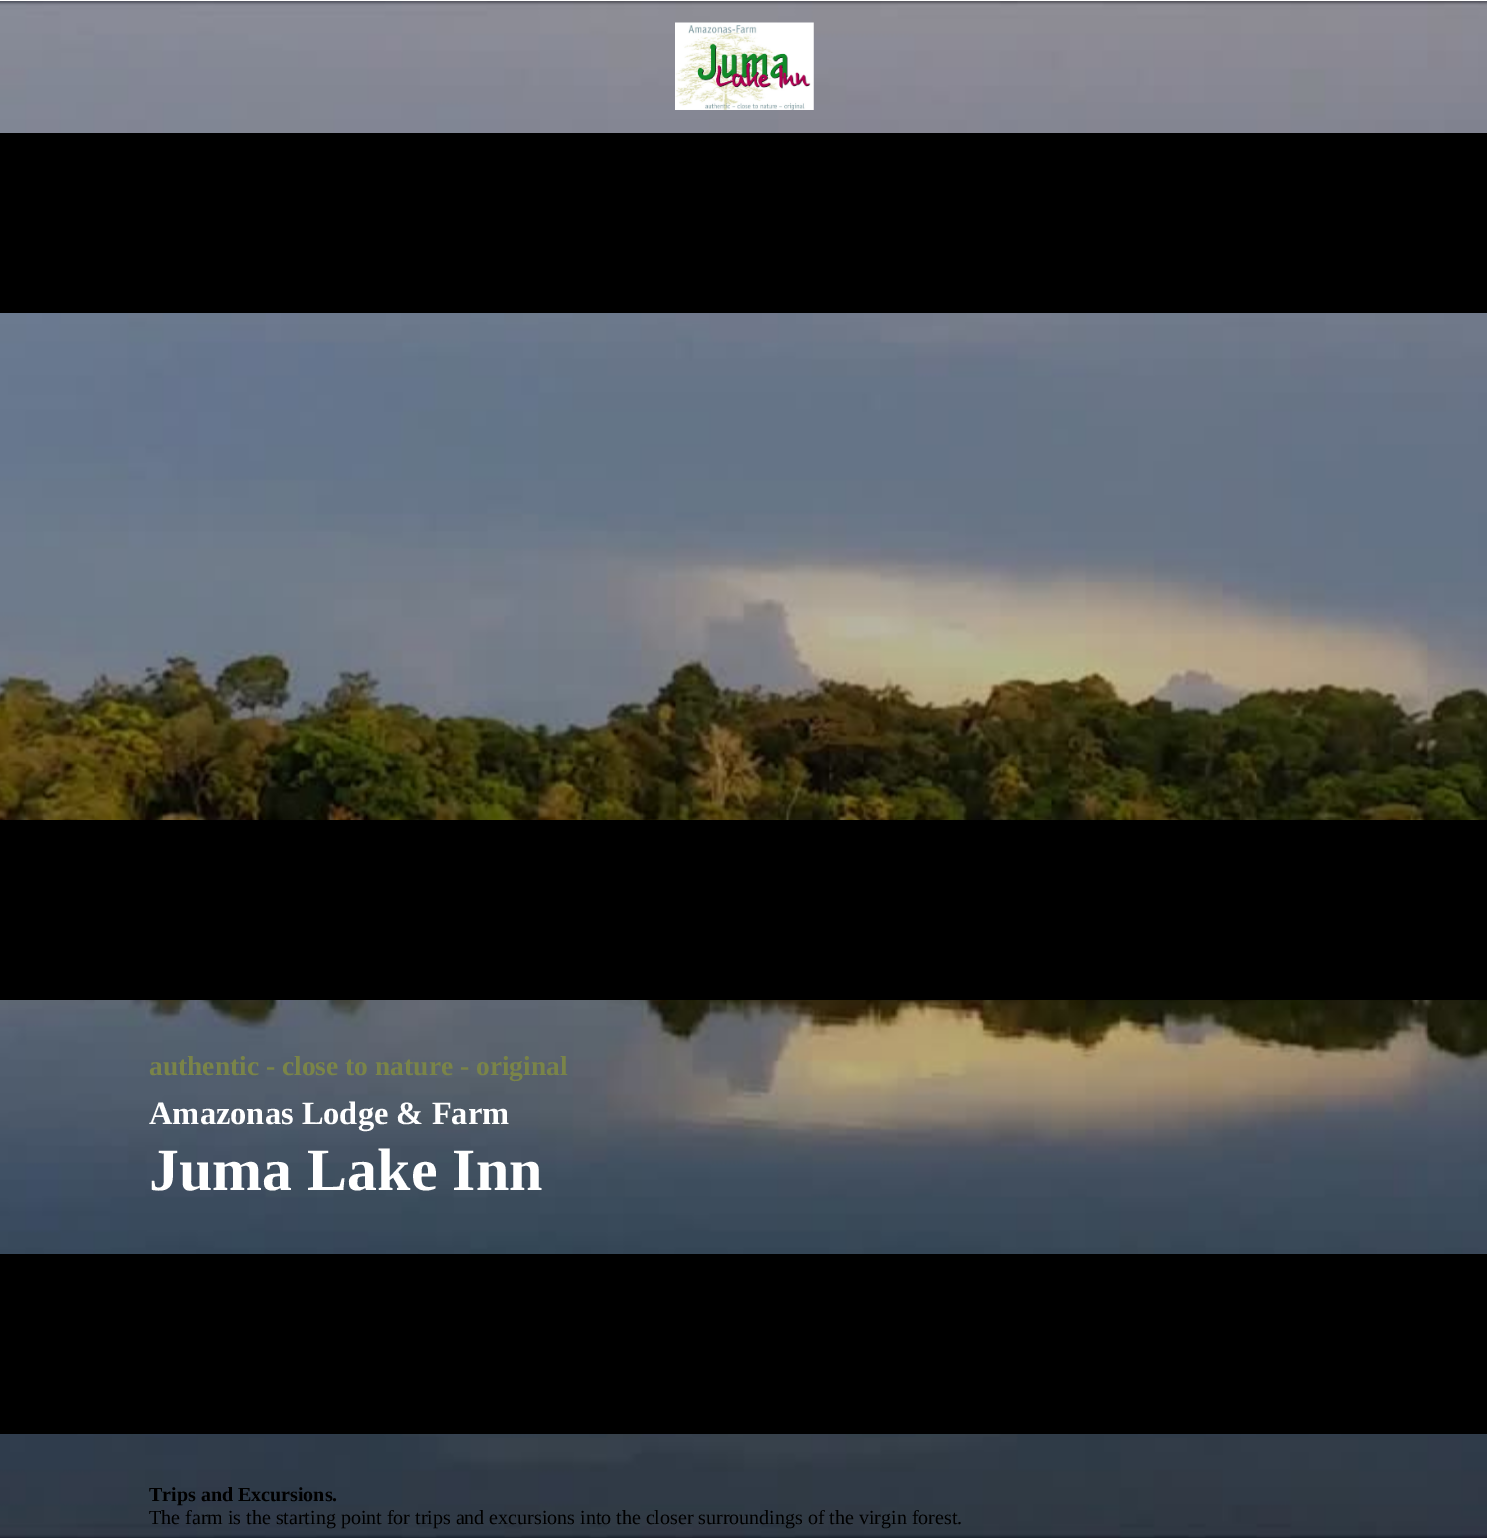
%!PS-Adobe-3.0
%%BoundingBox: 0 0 1487 1538
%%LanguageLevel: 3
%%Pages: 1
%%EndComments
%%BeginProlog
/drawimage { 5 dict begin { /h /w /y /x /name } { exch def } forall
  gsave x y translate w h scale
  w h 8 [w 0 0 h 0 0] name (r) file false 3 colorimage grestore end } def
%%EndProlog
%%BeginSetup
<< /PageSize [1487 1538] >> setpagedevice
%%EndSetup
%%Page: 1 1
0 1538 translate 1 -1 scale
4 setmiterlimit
1 setgray
0 0 1487 1538 rectfill
(images/1.raw) 0 1 1487 1537 drawimage
(images/2.raw) 675 22 139 88 drawimage
0 setgray
0 133 1487 180 rectfill
0 820 1487 180 rectfill
0 1254 1487 180 rectfill
/LiberationSerif-Bold [27.5 0 0 -27.5 0 0] selectfont
0.478 0.518 0.282 setrgbcolor
149 1075 moveto (authentic - close to nature - original) show
/LiberationSerif-Bold [32.5 0 0 -32.5 0 0] selectfont
1 setgray
149 1124 moveto (Amazonas Lodge & Farm) show
/LiberationSerif-Bold [60 0 0 -60 0 0] selectfont
149 1190 moveto (Juma Lake Inn) show
/LiberationSerif-Bold [20 0 0 -20 0 0] selectfont
0 setgray
149 1501 moveto (Trips and Excursions.) show
/LiberationSerif-Regular [20 0 0 -20 0 0] selectfont
149 1524 moveto (The farm is the starting point for trips and excursions into the closer surroundings of the virgin forest.) show
showpage
%%EOF
